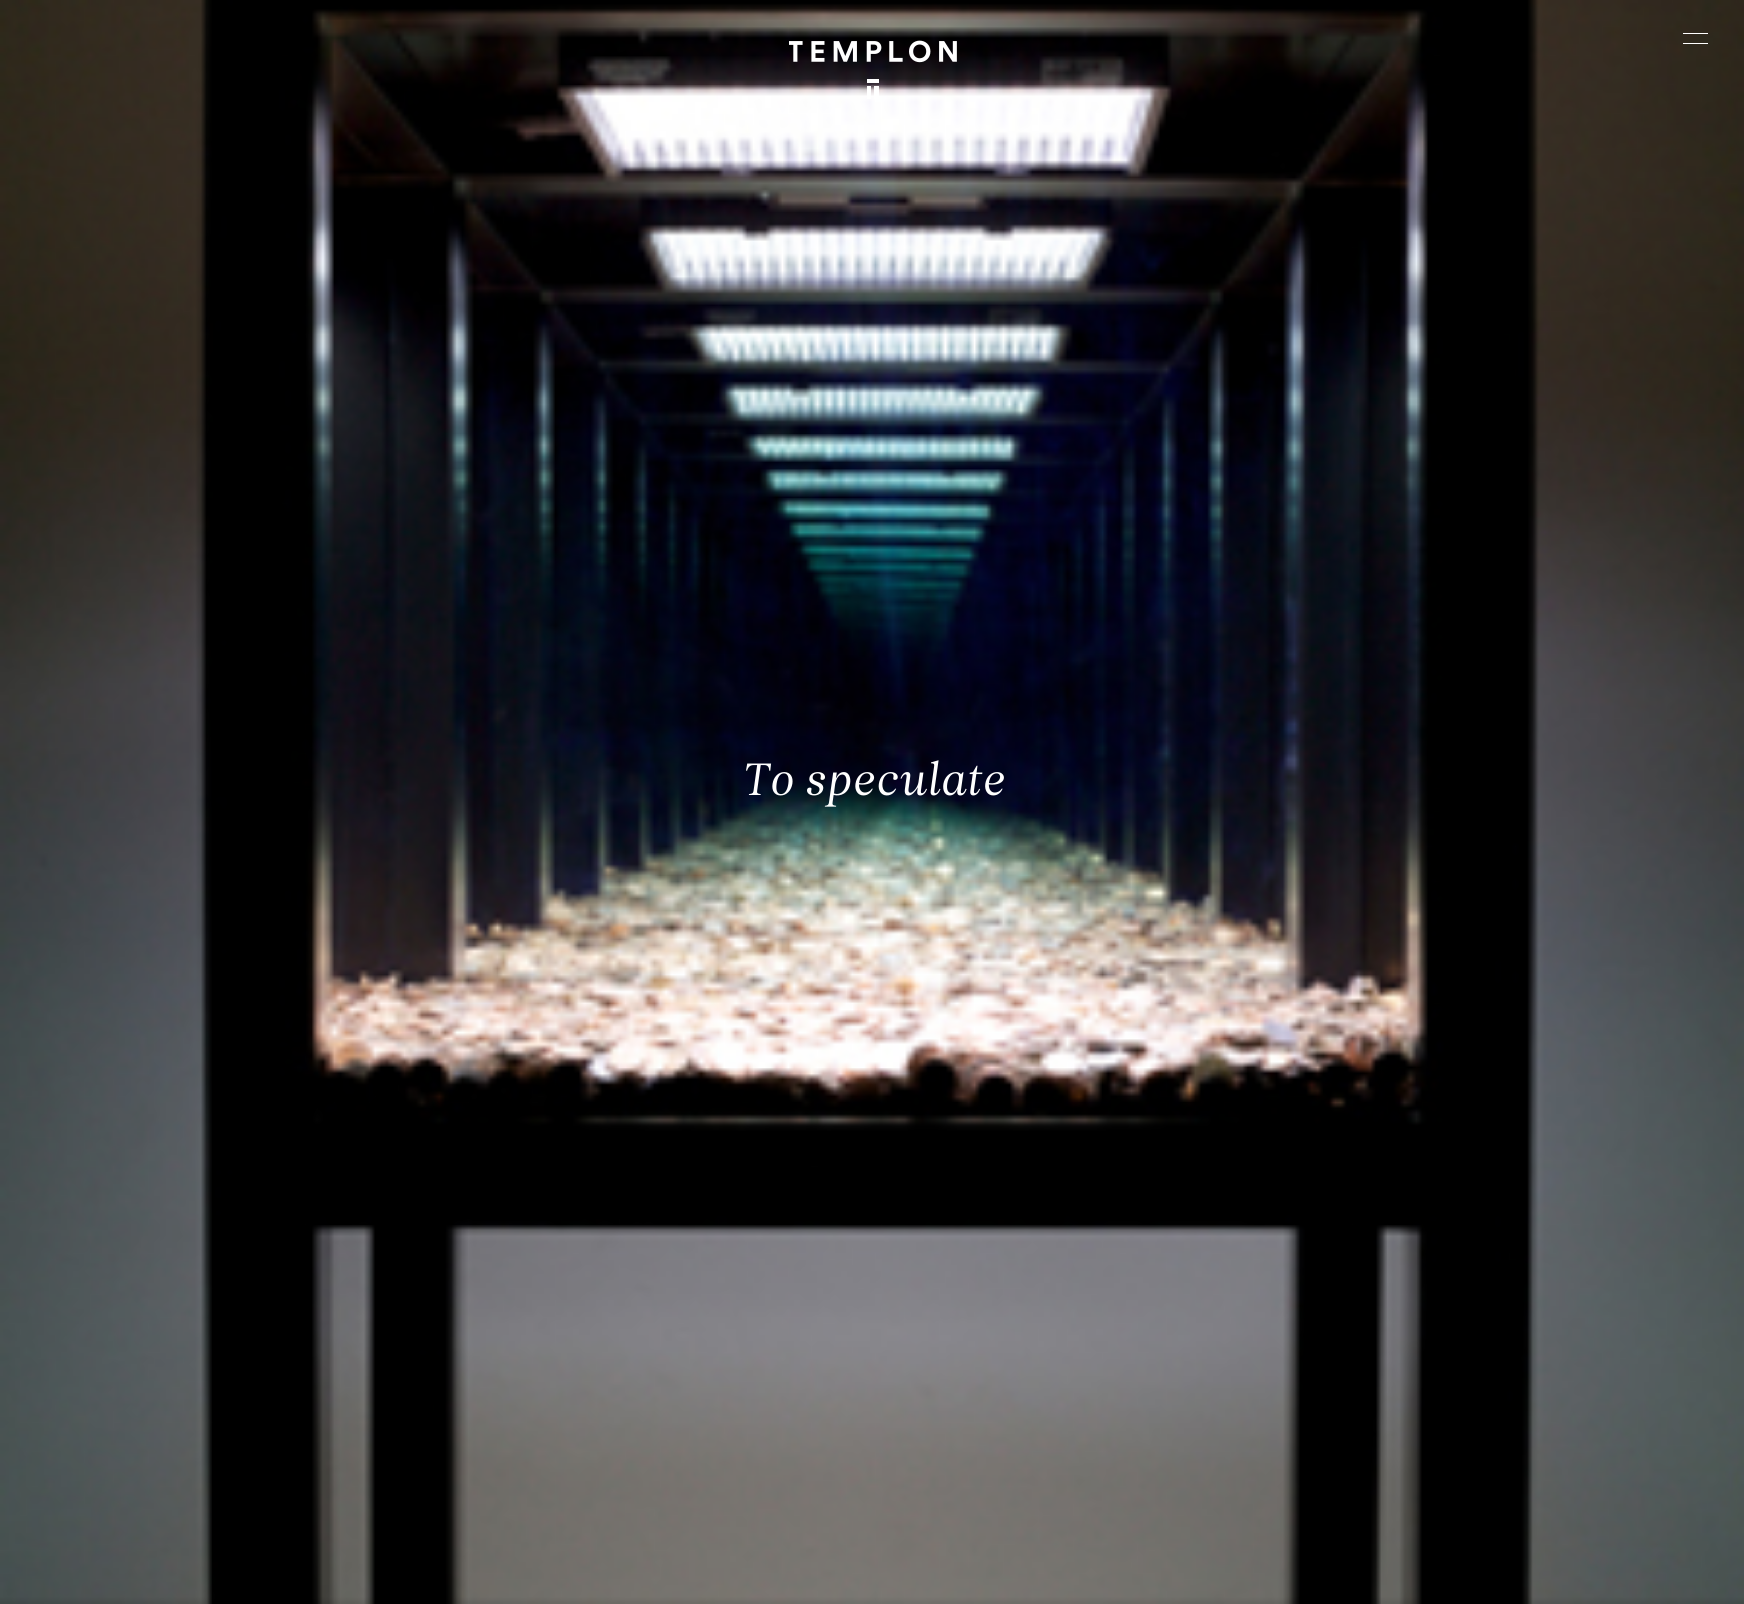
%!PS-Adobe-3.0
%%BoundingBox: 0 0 1744 1604
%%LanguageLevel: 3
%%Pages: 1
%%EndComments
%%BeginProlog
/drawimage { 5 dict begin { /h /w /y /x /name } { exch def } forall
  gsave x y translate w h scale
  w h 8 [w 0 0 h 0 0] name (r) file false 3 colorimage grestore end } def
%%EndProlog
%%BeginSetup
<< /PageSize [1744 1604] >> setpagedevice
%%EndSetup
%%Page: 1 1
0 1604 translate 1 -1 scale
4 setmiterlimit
1 setgray
0 0 1744 1604 rectfill
(images/1.raw) 0 0 1744 1604 drawimage
(images/2.raw) 746 760 258 47 drawimage
1683 33 25 1 rectfill
1683 43 25 1 rectfill
(images/3.raw) 789 40 168 23 drawimage
867 86 4 13 rectfill
874 86 5 13 rectfill
867 79 12 4 rectfill
showpage
%%EOF
